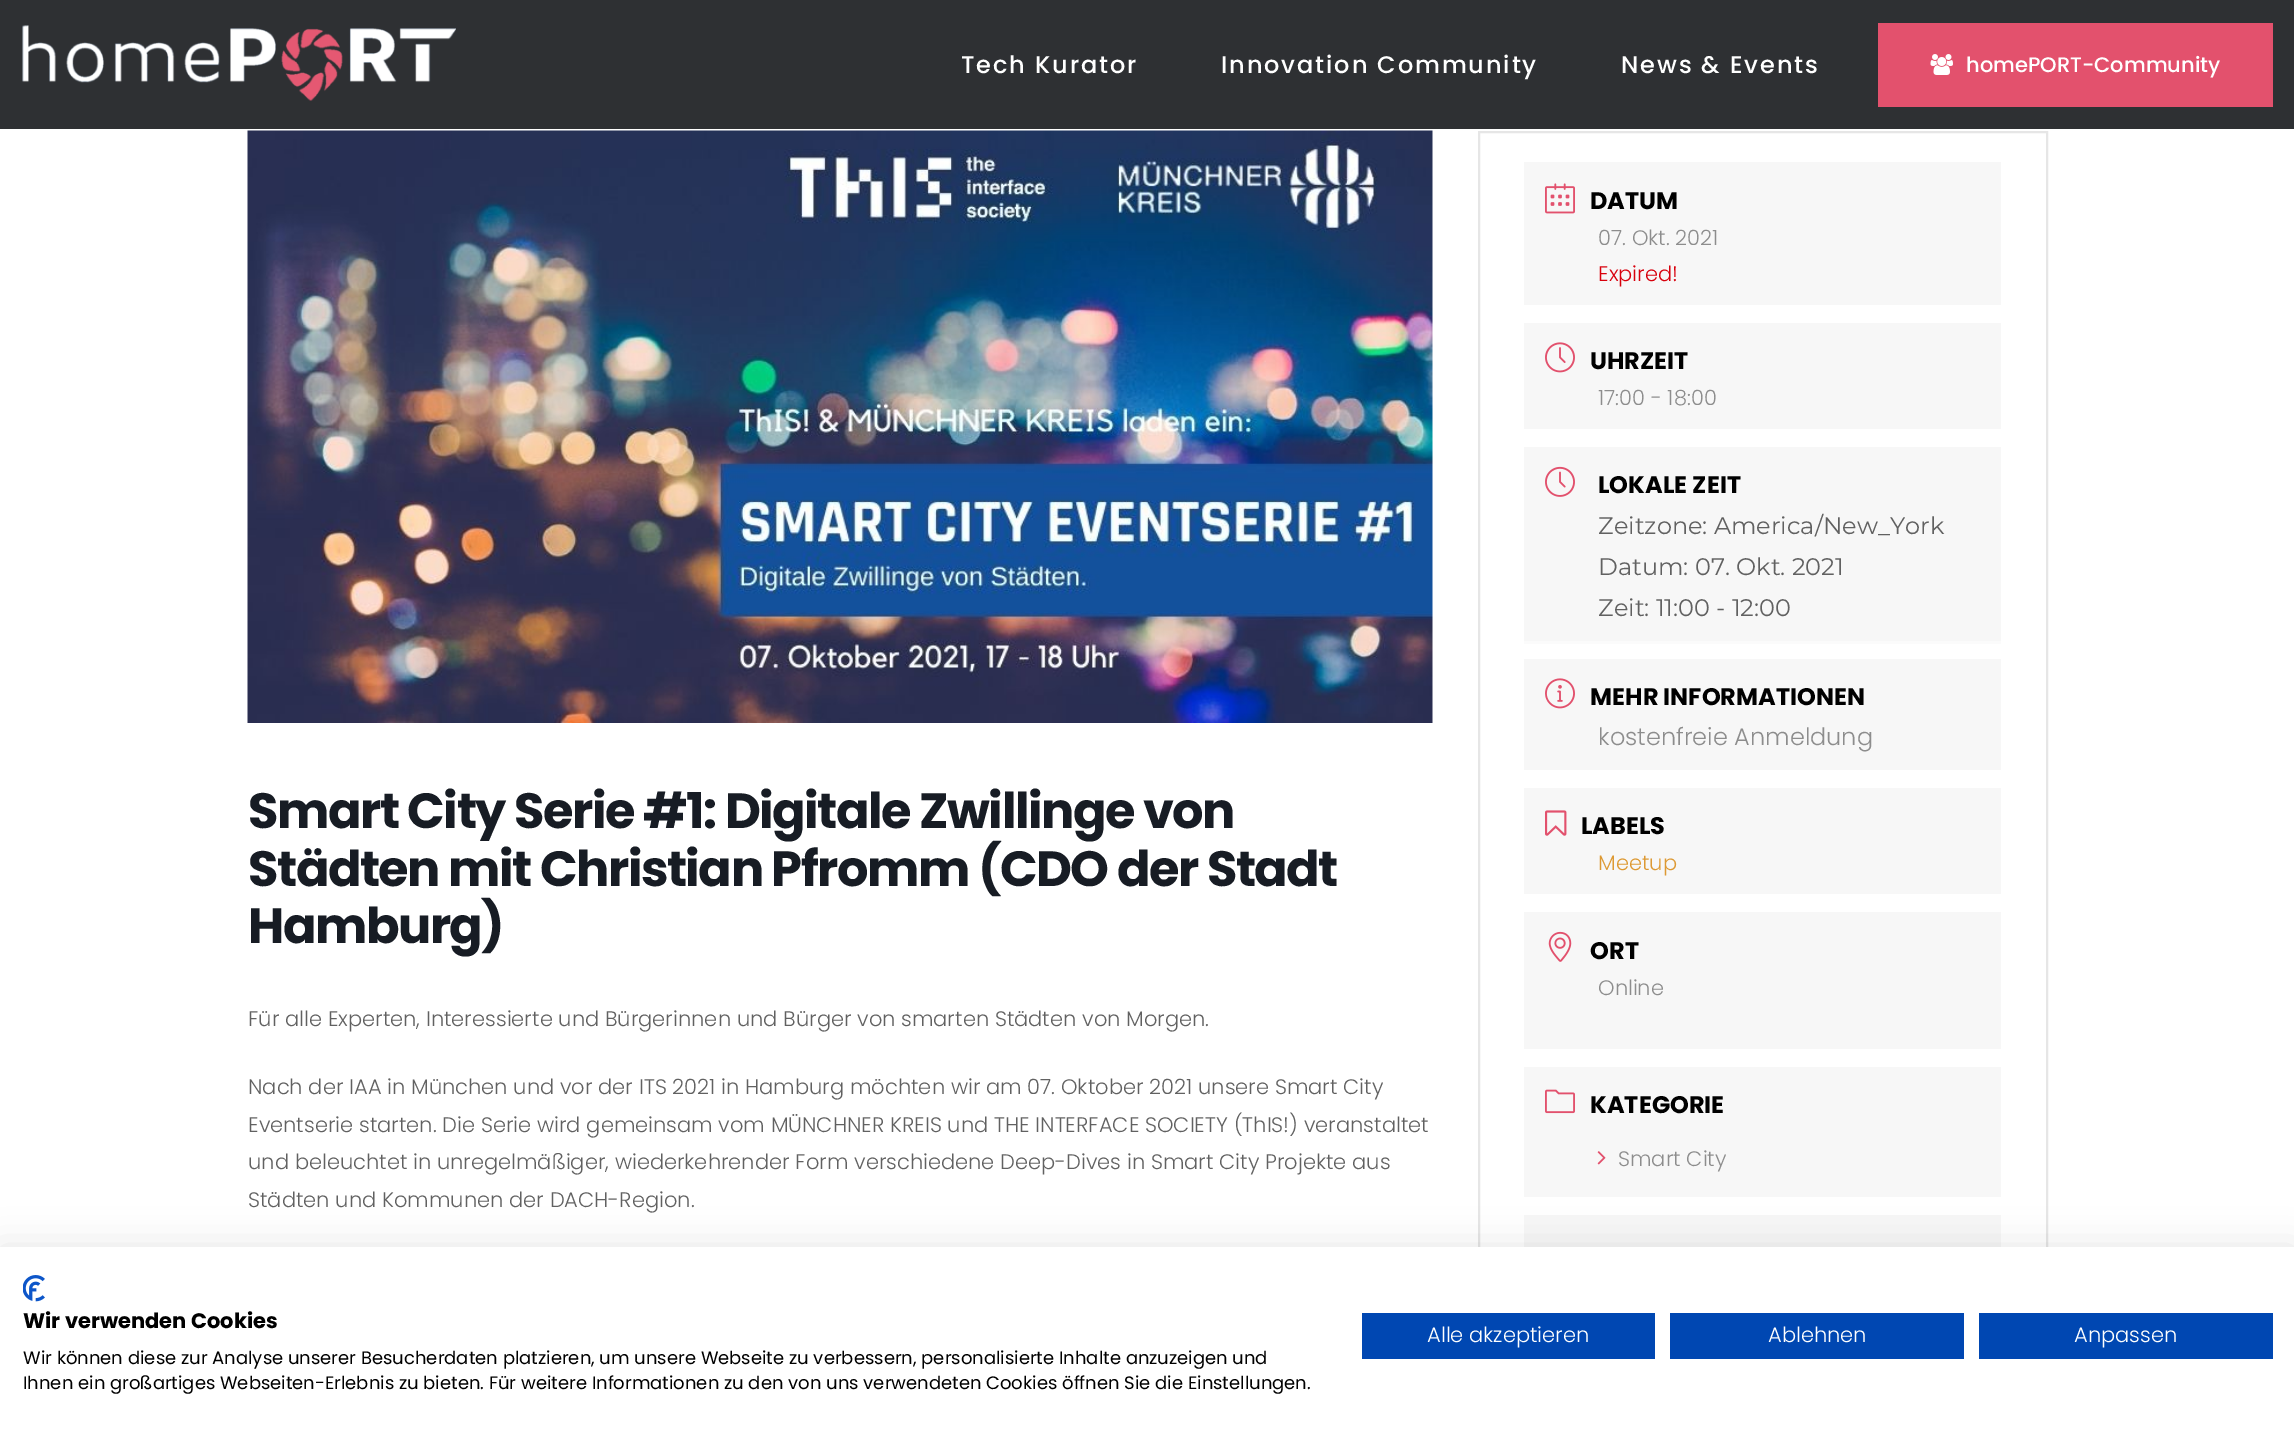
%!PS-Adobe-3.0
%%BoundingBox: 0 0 2294 1436
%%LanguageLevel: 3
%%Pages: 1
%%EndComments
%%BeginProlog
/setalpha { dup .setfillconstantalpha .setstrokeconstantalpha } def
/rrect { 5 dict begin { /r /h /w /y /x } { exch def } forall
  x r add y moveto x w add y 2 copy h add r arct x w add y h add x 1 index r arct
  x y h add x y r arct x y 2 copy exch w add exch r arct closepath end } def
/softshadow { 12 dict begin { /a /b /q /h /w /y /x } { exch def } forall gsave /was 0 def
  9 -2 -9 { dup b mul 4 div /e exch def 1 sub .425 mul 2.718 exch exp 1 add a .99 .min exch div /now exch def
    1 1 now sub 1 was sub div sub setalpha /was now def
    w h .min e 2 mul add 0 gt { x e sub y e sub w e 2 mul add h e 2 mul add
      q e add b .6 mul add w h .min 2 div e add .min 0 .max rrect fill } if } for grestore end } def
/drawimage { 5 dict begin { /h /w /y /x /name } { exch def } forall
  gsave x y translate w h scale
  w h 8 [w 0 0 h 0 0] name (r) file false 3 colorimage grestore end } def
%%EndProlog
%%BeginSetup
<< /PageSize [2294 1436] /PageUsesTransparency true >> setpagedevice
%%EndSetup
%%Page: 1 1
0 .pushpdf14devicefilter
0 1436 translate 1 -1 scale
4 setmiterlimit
1 setgray
0 0 2294 1436 rectfill
0.18 0.188 0.2 setrgbcolor
0 0 2294 129 rectfill
(images/1.raw) 22 25 434 76 drawimage
0.89 0.318 0.427 setrgbcolor
1878 23 395 84 rectfill
(images/2.raw) 1930 54 23 21 drawimage
(images/3.raw) 247 130 1186 593 drawimage
0.902 setgray
2 setlinewidth
1479 132 568 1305 rectstroke
0.969 setgray
1524 162 477 143 rectfill
(images/4.raw) 1545 183 30 31 drawimage
1524 323 477 106 rectfill
(images/5.raw) 1545 342 30 31 drawimage
0.984 setgray
1524 641 477 3 rectfill
0.969 setgray
1524 447 477 194 rectfill
(images/6.raw) 1545 466 30 31 drawimage
1524 659 477 111 rectfill
(images/7.raw) 1545 678 30 31 drawimage
1524 788 477 106 rectfill
(images/8.raw) 1545 810 22 26 drawimage
1524 912 477 137 rectfill
(images/9.raw) 1548 931 24 31 drawimage
1524 1067 477 130 rectfill
(images/10.raw) 1545 1089 30 25 drawimage
(images/11.raw) 1597 1151 9 14 drawimage
1524 1215 477 32 rectfill
0 setgray
0 1247 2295 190 0 18 0.1 softshadow
1 setgray
0 1247 2294 189 rectfill
(images/12.raw) 23 1275 22 27 drawimage
0 0.278 0.698 setrgbcolor
1362 1313 293 46 rectfill
1670 1313 294 46 rectfill
1979 1313 294 46 rectfill
/Poppins-Medium [24 0 0 -24 0 0] selectfont
1 setgray
961 73 moveto 1.9 0 (Tech Kurator) ashow
1221 73 moveto 1.9 0 (Innovation Community) ashow
1621 73 moveto 1.9 0 (News & Events) ashow
/Poppins-Medium [21 0 0 -21 0 0] selectfont
1966 72 moveto (homePORT-Community) show
/Poppins-Bold [49.5 0 0 -49.5 0 0] selectfont
0.09 0.11 0.141 setrgbcolor
248 828 moveto -1.5 0 (Smart City Serie #1: Digitale Zwillinge von) ashow
248 886 moveto -1.5 0 (Städten mit Christian Pfromm \(CDO der Stadt) ashow
248 943 moveto -1.5 0 (Hamburg\)) ashow
/Poppins-Light [21 0 0 -21 0 0] selectfont
0.38 setgray
248 1026 moveto (Für alle Experten, Interessierte und Bürgerinnen und Bürger von smarten Städten von Morgen.) show
248 1094 moveto (Nach der IAA in München und vor der ITS 2021 in Hamburg möchten wir am 07. Oktober 2021 unsere Smart City) show
248 1132 moveto (Eventserie starten. Die Serie wird gemeinsam vom MÜNCHNER KREIS und THE INTERFACE SOCIETY \(ThIS!\) veranstaltet) show
248 1169 moveto (und beleuchtet in unregelmäßiger, wiederkehrender Form verschiedene Deep-Dives in Smart City Projekte aus) show
248 1207 moveto (Städten und Kommunen der DACH-Region.) show
/Poppins-Bold [24 0 0 -24 0 0] selectfont
0 setgray
1590 209 moveto (DATUM) show
/Poppins-Light [21 0 0 -21 0 0] selectfont
0.553 setgray
1598 245 moveto (07. Okt. 2021) show
0.847 0 0.047 setrgbcolor
1598 281 moveto (Expired!) show
/Poppins-Bold [24 0 0 -24 0 0] selectfont
0 setgray
1590 369 moveto (UHRZEIT) show
/Poppins-Light [21 0 0 -21 0 0] selectfont
0.553 setgray
1598 405 moveto (17:00 - 18:00) show
/Poppins-Bold [24 0 0 -24 0 0] selectfont
0 setgray
1598 493 moveto (LOKALE ZEIT) show
/Montserrat-Regular [24 0 0 -24 0 0] selectfont
0.38 setgray
1598 534 moveto (Zeitzone: America/New_York) show
1598 575 moveto (Datum: 07. Okt. 2021) show
1598 616 moveto (Zeit: 11:00 - 12:00) show
/Poppins-Bold [24 0 0 -24 0 0] selectfont
0 setgray
1590 705 moveto (MEHR INFORMATIONEN) show
/Poppins-Light [24 0 0 -24 0 0] selectfont
0.553 setgray
1598 745 moveto (kostenfreie Anmeldung) show
/Poppins-Bold [24 0 0 -24 0 0] selectfont
0 setgray
1581 834 moveto (LABELS) show
/Poppins-Light [21 0 0 -21 0 0] selectfont
0.867 0.6 0.2 setrgbcolor
1598 870 moveto (Meetup) show
/Poppins-Bold [24 0 0 -24 0 0] selectfont
0 setgray
1590 959 moveto (ORT) show
/Poppins-Light [21 0 0 -21 0 0] selectfont
0.553 setgray
1598 995 moveto (Online) show
/Poppins-Bold [24 0 0 -24 0 0] selectfont
0 setgray
1590 1113 moveto (KATEGORIE) show
/Poppins-Light [21 0 0 -21 0 0] selectfont
0.553 setgray
1618 1166 moveto (Smart City) show
/Poppins-Bold [21 0 0 -21 0 0] selectfont
0 setgray
23 1328 moveto (Wir verwenden Cookies) show
/Poppins-Regular [18 0 0 -18 0 0] selectfont
23 1364 moveto (Wir können diese zur Analyse unserer Besucherdaten platzieren, um unsere Webseite zu verbessern, personalisierte Inhalte anzuzeigen und) show
23 1389 moveto (Ihnen ein großartiges Webseiten-Erlebnis zu bieten. Für weitere Informationen zu den von uns verwendeten Cookies öffnen Sie die Einstellungen.) show
/Poppins-Light [21 0 0 -21 0 0] selectfont
1 setgray
1427 1342 moveto (Alle akzeptieren) show
1768 1342 moveto (Ablehnen) show
2074 1342 moveto (Anpassen) show
.poppdf14devicefilter showpage
%%EOF
